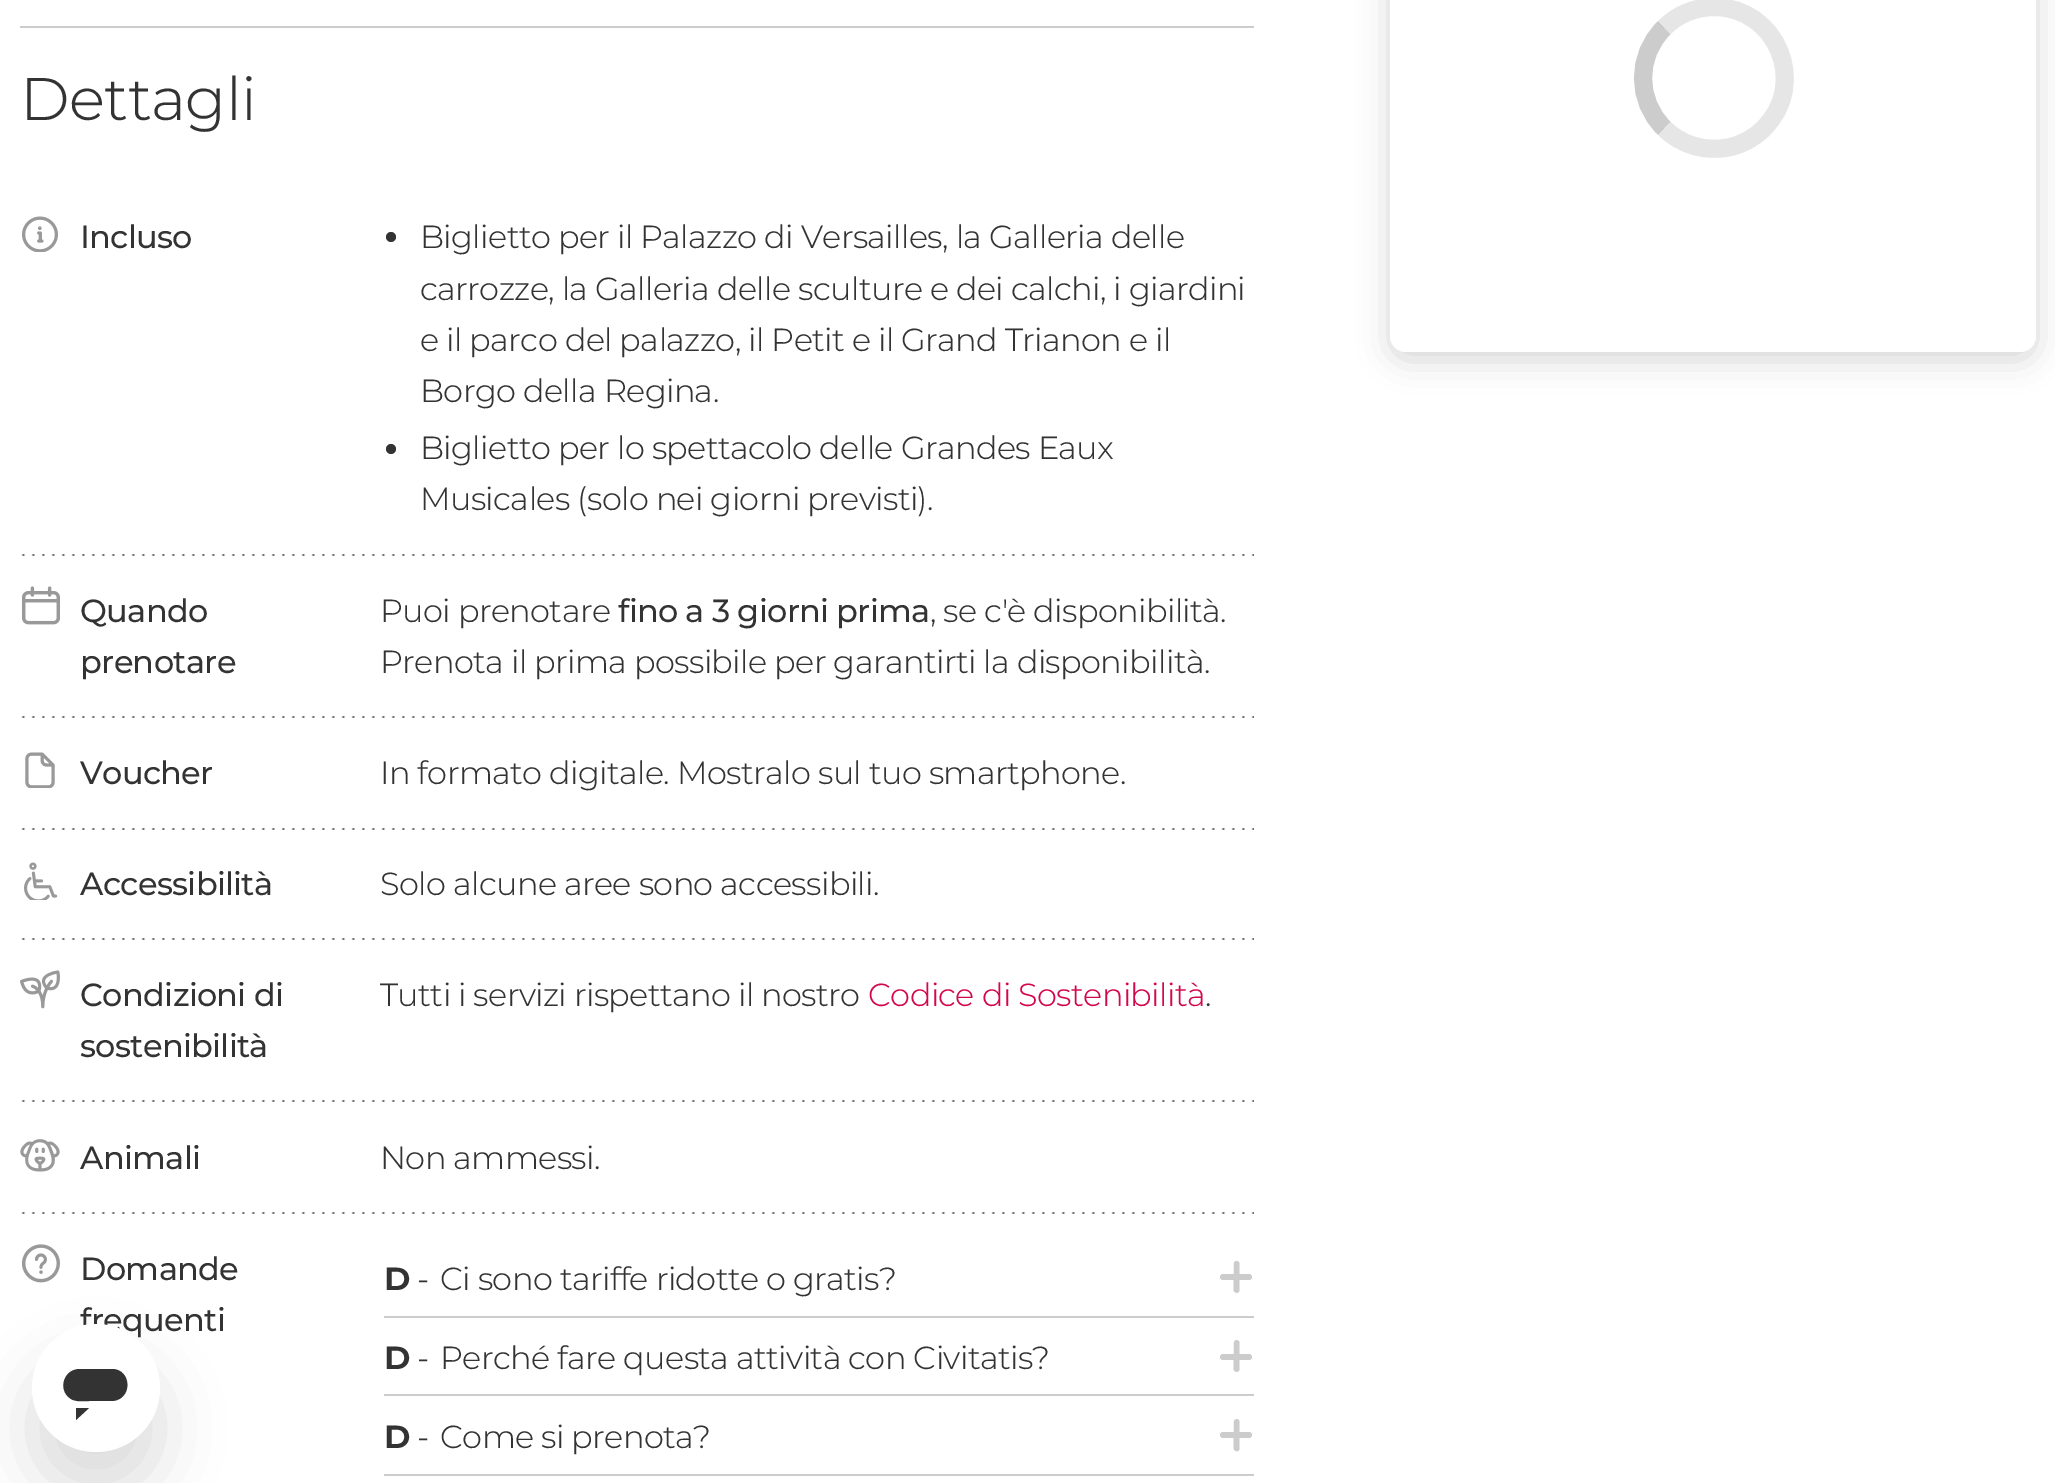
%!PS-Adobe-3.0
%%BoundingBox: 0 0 2055 1483
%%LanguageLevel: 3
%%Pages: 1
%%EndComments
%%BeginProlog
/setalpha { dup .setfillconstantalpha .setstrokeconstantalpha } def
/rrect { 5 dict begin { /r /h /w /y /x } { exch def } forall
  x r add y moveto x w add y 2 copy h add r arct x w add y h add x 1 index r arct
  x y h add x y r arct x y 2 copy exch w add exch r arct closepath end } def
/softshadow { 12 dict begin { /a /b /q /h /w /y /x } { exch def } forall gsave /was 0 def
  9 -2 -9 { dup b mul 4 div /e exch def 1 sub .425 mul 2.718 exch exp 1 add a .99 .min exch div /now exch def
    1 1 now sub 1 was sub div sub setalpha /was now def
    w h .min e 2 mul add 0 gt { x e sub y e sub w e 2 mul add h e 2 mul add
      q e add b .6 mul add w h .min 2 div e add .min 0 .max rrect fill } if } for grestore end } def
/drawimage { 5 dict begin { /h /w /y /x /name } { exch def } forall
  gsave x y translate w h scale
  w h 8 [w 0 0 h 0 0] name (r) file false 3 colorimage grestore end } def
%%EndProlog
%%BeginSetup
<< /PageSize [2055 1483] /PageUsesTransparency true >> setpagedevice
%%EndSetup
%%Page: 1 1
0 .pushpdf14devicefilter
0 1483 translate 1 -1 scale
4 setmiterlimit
1 setgray
0 0 2055 1483 rectfill
0.8 setgray
20 26 1234 2 rectfill
(images/1.raw) 21 554 1233 2 drawimage
(images/2.raw) 22 216 36 36 drawimage
0.2 setgray
newpath 391 237 5 0 360 arc closepath fill
newpath 391 449 5 0 360 arc closepath fill
(images/1.raw) 21 716 1233 2 drawimage
(images/3.raw) 22 586 38 39 drawimage
(images/1.raw) 21 828 1233 2 drawimage
(images/4.raw) 25 752 30 36 drawimage
(images/1.raw) 21 938 1233 2 drawimage
(images/5.raw) 24 862 34 38 drawimage
(images/1.raw) 21 1100 1233 2 drawimage
(images/6.raw) 20 970 40 39 drawimage
(images/1.raw) 21 1212 1233 2 drawimage
(images/7.raw) 20 1139 40 33 drawimage
(images/8.raw) 22 1244 38 39 drawimage
0.8 setgray
384 1316 870 2 rectfill
1220 1274 32 6 3 rrect fill
newpath 1239.5 1264 moveto 1239.5 1291 lineto 1238 1294 1234 1293 1233.5 1290 curveto 1234 1263 lineto 1234.5 1260 1239.5 1260.5 1239.5 1264 curveto closepath fill
384 1394 870 2 rectfill
1220 1354 32 6 3 rrect fill
newpath 1239.5 1343 moveto 1239.5 1370 lineto 1238 1373 1234 1372 1233.5 1369 curveto 1234 1342.5 lineto 1234.5 1339 1239.5 1339.5 1239.5 1343 curveto closepath fill
384 1474 870 2 rectfill
1220 1432 32 6 3 rrect fill
newpath 1239.5 1422 moveto 1239.5 1449.5 lineto 1238 1452.5 1234 1451.5 1233.5 1448 curveto 1234 1421.5 lineto 1234.5 1418 1239.5 1418.5 1239.5 1422 curveto closepath fill
0 setgray
1390 -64 646 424 16 16 0.16 softshadow
1 setgray
1390 -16 646 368 16 rrect fill
0.902 setgray
18 setlinewidth
newpath 1664 28 moveto 1677 14.5 1695.5 7 1714 7 curveto 1777 7 1808.5 84 1764 128 curveto 1754.5 138 1741.5 145 1728 147.5 curveto 1705 152 1680.5 145 1664 128 curveto stroke
0.2 setalpha
0 setgray
newpath 1664 128 moveto 1636 100.5 1636 55.5 1664 28 curveto stroke
1 setalpha
0.141 setgray
32 1364 128 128 64 30 0.15 softshadow
/Montserrat-Light [60 0 0 -60 0 0] selectfont
0.2 setgray
20 120 moveto -0.65 0 (Dettagli) ashow
/Montserrat-Medium [32 0 0 -32 0 0] selectfont
80 248 moveto -0.65 0 (Incluso) ashow
/Montserrat-Light [32 0 0 -32 0 0] selectfont
420 248 moveto -0.65 0 (Biglietto per il Palazzo di Versailles, la Galleria delle) ashow
420 300 moveto -0.65 0 (carrozze, la Galleria delle sculture e dei calchi, i giardini) ashow
420 351 moveto -0.65 0 (e il parco del palazzo, il Petit e il Grand Trianon e il) ashow
420 402 moveto -0.65 0 (Borgo della Regina.) ashow
420 459 moveto -0.65 0 (Biglietto per lo spettacolo delle Grandes Eaux) ashow
420 510 moveto -0.65 0 (Musicales \(solo nei giorni previsti\).) ashow
/Montserrat-Medium [32 0 0 -32 0 0] selectfont
80 622 moveto -0.65 0 (Quando) ashow
80 673 moveto -0.65 0 (prenotare) ashow
/Montserrat-Light [32 0 0 -32 0 0] selectfont
380 622 moveto -0.65 0 (Puoi prenotare) ashow
/Montserrat-Medium [32 0 0 -32 0 0] selectfont
618 622 moveto -0.65 0 (fino a 3 giorni prima) ashow
/Montserrat-Light [32 0 0 -32 0 0] selectfont
930 622 moveto -0.65 0 (, se c'è disponibilità.) ashow
380 673 moveto -0.65 0 (Prenota il prima possibile per garantirti la disponibilità.) ashow
/Montserrat-Medium [32 0 0 -32 0 0] selectfont
80 784 moveto -0.65 0 (Voucher) ashow
/Montserrat-Light [32 0 0 -32 0 0] selectfont
380 784 moveto -0.65 0 (In formato digitale. Mostralo sul tuo smartphone.) ashow
/Montserrat-Medium [32 0 0 -32 0 0] selectfont
80 895 moveto -0.65 0 (Accessibilità) ashow
/Montserrat-Light [32 0 0 -32 0 0] selectfont
380 895 moveto -0.65 0 (Solo alcune aree sono accessibili.) ashow
/Montserrat-Medium [32 0 0 -32 0 0] selectfont
80 1006 moveto -0.65 0 (Condizioni di) ashow
80 1057 moveto -0.65 0 (sostenibilità) ashow
/Montserrat-Light [32 0 0 -32 0 0] selectfont
380 1006 moveto -0.65 0 (Tutti i servizi rispettano il nostro) ashow
0.827 0.027 0.298 setrgbcolor
868 1006 moveto -0.65 0 (Codice di Sostenibilità) ashow
0.2 setgray
1205 1006 moveto -0.65 0 (.) ashow
/Montserrat-Medium [32 0 0 -32 0 0] selectfont
80 1169 moveto -0.65 0 (Animali) ashow
/Montserrat-Light [32 0 0 -32 0 0] selectfont
380 1169 moveto -0.65 0 (Non ammessi.) ashow
/Montserrat-Medium [32 0 0 -32 0 0] selectfont
80 1280 moveto -0.65 0 (Domande) ashow
80 1331 moveto -0.65 0 (frequenti) ashow
/Montserrat-Bold [32 0 0 -32 0 0] selectfont
384 1290 moveto -0.65 0 (D) ashow
/Montserrat-Light [32 0 0 -32 0 0] selectfont
417 1290 moveto -0.65 0 (-) ashow
440 1290 moveto -0.65 0 (Ci sono tariffe ridotte o gratis?) ashow
/Montserrat-Bold [32 0 0 -32 0 0] selectfont
384 1369 moveto -0.65 0 (D) ashow
/Montserrat-Light [32 0 0 -32 0 0] selectfont
417 1369 moveto -0.65 0 (-) ashow
440 1369 moveto -0.65 0 (Perché fare questa attività con Civitatis?) ashow
/Montserrat-Bold [32 0 0 -32 0 0] selectfont
384 1448 moveto -0.65 0 (D) ashow
/Montserrat-Light [32 0 0 -32 0 0] selectfont
417 1448 moveto -0.65 0 (-) ashow
440 1448 moveto -0.65 0 (Come si prenota?) ashow
1 setgray
newpath 96 1388 64 0 360 arc closepath fill
0.2 setgray
newpath 89 1408 moveto 76 1420 lineto 76 1408 lineto closepath 112 1369 moveto 132 1369 133 1400 112 1401 curveto 90 1401 lineto 85 1401 79 1402 73 1400 curveto 57 1393 62 1369 80 1369 curveto closepath fill
.poppdf14devicefilter showpage
%%EOF
